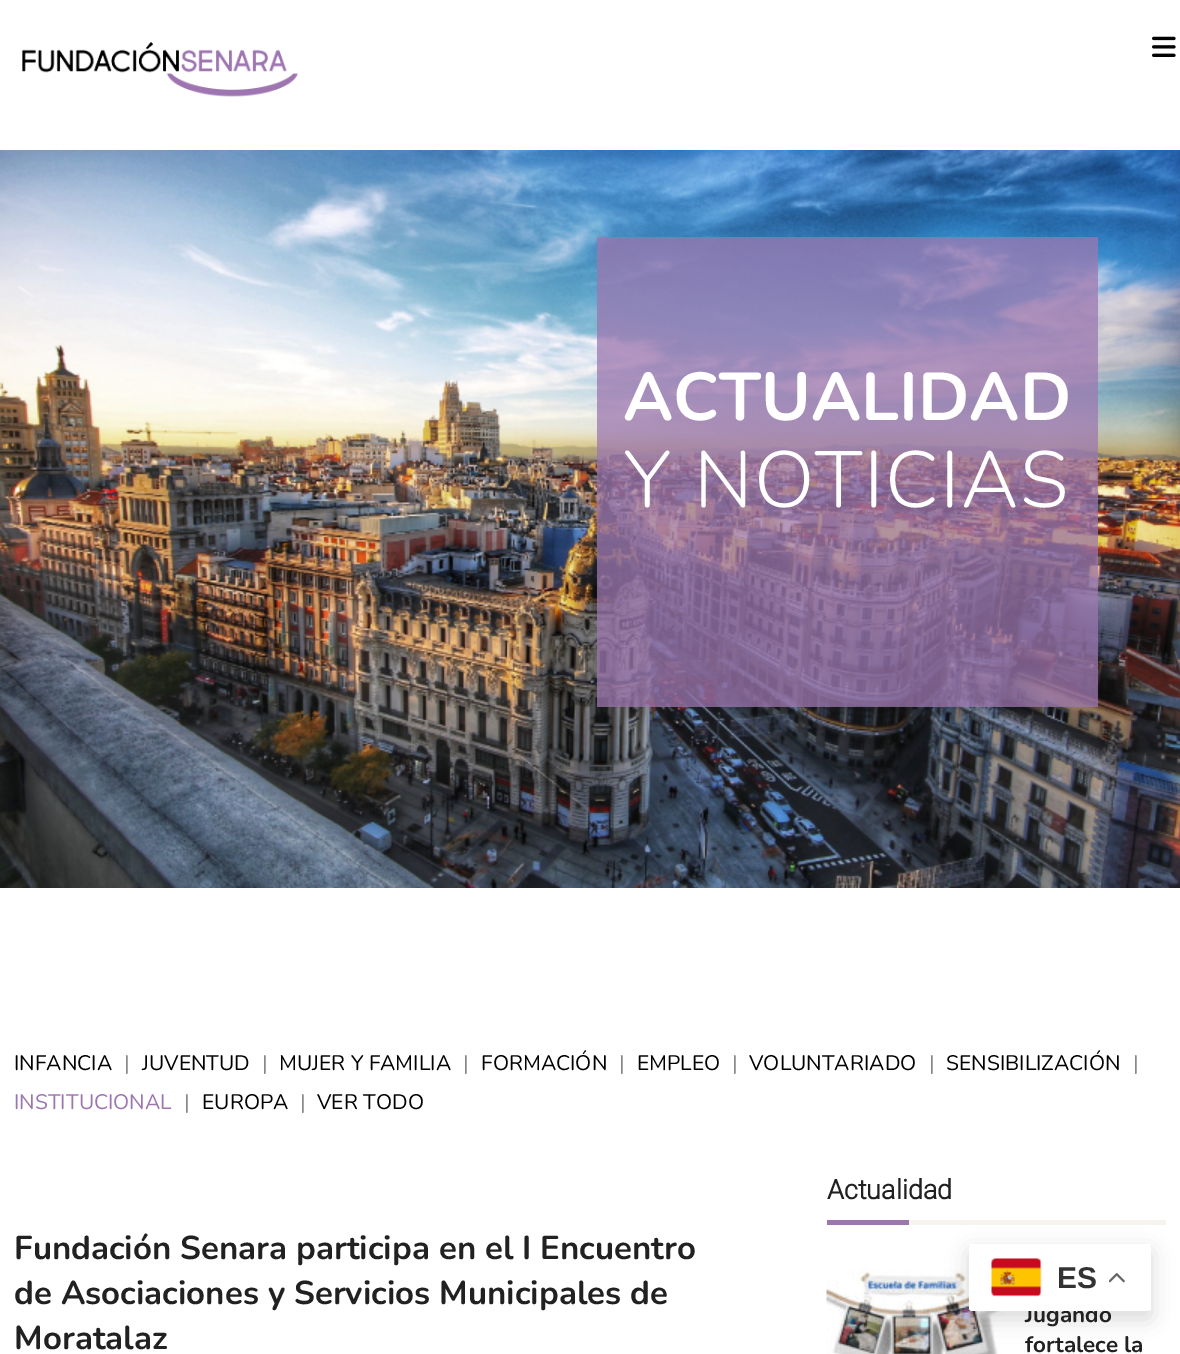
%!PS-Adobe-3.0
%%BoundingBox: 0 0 1180 1354
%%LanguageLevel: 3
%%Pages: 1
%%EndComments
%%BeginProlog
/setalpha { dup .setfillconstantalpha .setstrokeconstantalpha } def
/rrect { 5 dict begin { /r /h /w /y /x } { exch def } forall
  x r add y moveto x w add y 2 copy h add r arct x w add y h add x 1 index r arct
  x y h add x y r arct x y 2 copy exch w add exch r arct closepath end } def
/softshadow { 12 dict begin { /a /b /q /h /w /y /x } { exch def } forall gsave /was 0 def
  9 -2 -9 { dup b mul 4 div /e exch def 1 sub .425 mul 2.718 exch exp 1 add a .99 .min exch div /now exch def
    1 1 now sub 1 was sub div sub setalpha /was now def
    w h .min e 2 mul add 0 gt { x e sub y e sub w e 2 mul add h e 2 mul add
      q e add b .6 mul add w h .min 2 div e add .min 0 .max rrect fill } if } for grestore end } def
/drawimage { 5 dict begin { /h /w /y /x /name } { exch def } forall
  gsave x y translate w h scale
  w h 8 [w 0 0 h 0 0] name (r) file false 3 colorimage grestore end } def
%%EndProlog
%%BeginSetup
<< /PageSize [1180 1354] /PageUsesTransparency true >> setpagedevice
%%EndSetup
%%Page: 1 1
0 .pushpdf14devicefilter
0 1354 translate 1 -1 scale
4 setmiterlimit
1 setgray
0 0 1180 1354 rectfill
(images/1.raw) 22 42 276 55 drawimage
(images/2.raw) 1152 36 24 21 drawimage
(images/3.raw) 0 150 1180 738 drawimage
0.75 setalpha
0.612 0.467 0.686 setrgbcolor
597 237 501 470 rectfill
1 setalpha
827 1220 82 5 rectfill
0.965 0.957 0.933 setrgbcolor
909 1220 257 5 rectfill
(images/4.raw) 826 1269 178 85 drawimage
0 setgray
969 1251 182 68 3 11 0.15 softshadow
/Nunito-Bold [67.5 0 0 -67.5 0 0] selectfont
1 setgray
623 420 moveto (ACTUALIDAD) show
/Nunito-Light [79.5 0 0 -79.5 0 0] selectfont
624 507 moveto 1.5 0 (Y NOTICIAS) ashow
/Nunito-Regular [21 0 0 -21 0 0] selectfont
0 setgray
14 1070 moveto (INFANCIA) show
0.533 setgray
124 1070 moveto (|) show
0 setgray
142 1070 moveto (JUVENTUD) show
0.533 setgray
262 1070 moveto (|) show
0 setgray
279 1070 moveto (MUJER Y FAMILIA) show
0.533 setgray
463 1070 moveto (|) show
0 setgray
481 1070 moveto (FORMACIÓN) show
0.533 setgray
619 1070 moveto (|) show
0 setgray
637 1070 moveto (EMPLEO) show
0.533 setgray
732 1070 moveto (|) show
0 setgray
749 1070 moveto (VOLUNTARIADO) show
0.533 setgray
929 1070 moveto (|) show
0 setgray
946 1070 moveto (SENSIBILIZACIÓN) show
0.533 setgray
1133 1070 moveto (|) show
0.612 0.467 0.686 setrgbcolor
14 1109 moveto (INSTITUCIONAL) show
0.533 setgray
184 1109 moveto (|) show
0 setgray
202 1109 moveto (EUROPA) show
0.533 setgray
300 1109 moveto (|) show
0 setgray
317 1109 moveto (VER TODO) show
/Nunito-Bold [33 0 0 -33 0 0] selectfont
0.129 setgray
14 1259 moveto (Fundación Senara participa en el I Encuentro) show
14 1304 moveto (de Asociaciones y Servicios Municipales de) show
14 1349 moveto (Moratalaz) show
/Roboto-Bold [27 0 0 -27 0 0] selectfont
827 1199 moveto (Actualidad) show
/Nunito-Bold [22.5 0 0 -22.5 0 0] selectfont
1025 1322 moveto (Jugando) show
1025 1352 moveto (fortalece la) show
1 setgray
969 1244 182 67 3 rrect fill
(images/5.raw) 991 1258 51 39 drawimage
/LiberationSans-Bold [30 0 0 -30 0 0] selectfont
0.2 setgray
1057 1288 moveto (ES) show
(images/6.raw) 1109 1272 16 11 drawimage
.poppdf14devicefilter showpage
%%EOF
